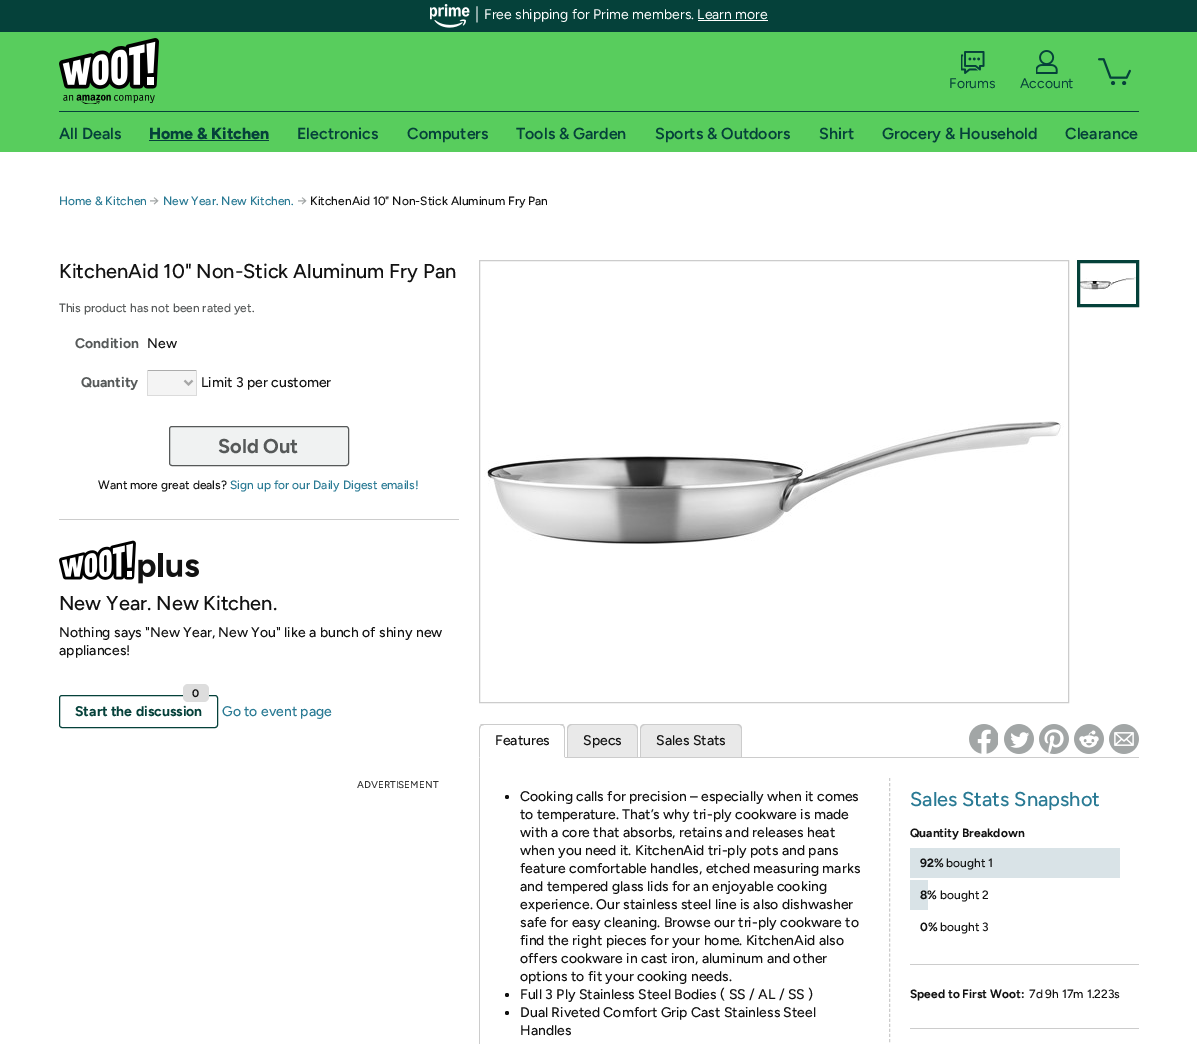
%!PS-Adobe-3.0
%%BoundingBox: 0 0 1197 1044
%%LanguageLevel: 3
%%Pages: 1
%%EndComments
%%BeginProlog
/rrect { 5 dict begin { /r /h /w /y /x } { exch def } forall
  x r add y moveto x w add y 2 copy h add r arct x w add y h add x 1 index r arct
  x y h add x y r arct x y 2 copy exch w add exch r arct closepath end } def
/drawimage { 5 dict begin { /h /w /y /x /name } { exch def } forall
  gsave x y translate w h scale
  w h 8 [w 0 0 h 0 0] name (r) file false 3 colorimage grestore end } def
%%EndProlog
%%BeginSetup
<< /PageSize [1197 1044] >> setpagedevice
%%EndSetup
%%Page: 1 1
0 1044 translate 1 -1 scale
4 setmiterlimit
1 setgray
0 0 1197 1044 rectfill
0.02 0.255 0.227 setrgbcolor
0 0 1197 32 rectfill
(images/1.raw) 430 4 40 24 drawimage
1 setgray
698 20 70 1 rectfill
0.345 0.804 0.365 setrgbcolor
0 32 1197 120 rectfill
0.02 0.255 0.227 setrgbcolor
59 111 1080 1 rectfill
(images/2.raw) 59 38 100 66 drawimage
(images/3.raw) 961 51 24 23 drawimage
(images/4.raw) 1036 50 22 24 drawimage
(images/5.raw) 1098 58 33 27 drawimage
149 140 120 1 rectfill
0.8 setgray
59 519 400 1 rectfill
0.957 setgray
148 371 48 24 rectfill
0.675 setgray
147 370 50 1 rectfill
0.859 setgray
196 370 1 26 rectfill
147 395 50 1 rectfill
147 370 1 26 rectfill
0.651 setgray
2 setlinewidth
newpath 184.5 380.5 moveto 188.5 384.5 lineto 192.5 380.5 lineto stroke
0.941 0.949 0.949 setrgbcolor
169.5 426.5 179 39 2.5 rrect gsave fill grestore
0.337 0.349 0.349 setrgbcolor
1 setlinewidth
stroke
(images/6.raw) 59 540 140 44 drawimage
0.02 0.255 0.227 setrgbcolor
59.5 695.5 158 32 2.5 rrect stroke
0.867 setgray
183 684 26 18 5 rrect fill
0.8 setgray
479.5 260.5 589 442 rectstroke
(images/7.raw) 484 421 580 123 drawimage
0.02 0.255 0.227 setrgbcolor
1077.5 260.5 61 46 rectstroke
(images/8.raw) 1080 277 56 13 drawimage
2 setlinewidth
1079 262 58 43 rectstroke
(images/9.raw) 969 724 29 30 drawimage
(images/10.raw) 1004 724 30 30 drawimage
(images/11.raw) 1039 724 30 30 drawimage
(images/12.raw) 1074 724 30 30 drawimage
(images/13.raw) 1109 724 30 30 drawimage
0.8 setgray
565 757 574 1 rectfill
newpath 484 724 moveto 482 724 481 724 480 725 curveto 481 726 lineto 484 725 lineto 560 725 lineto 563 726 lineto 564 725 lineto 563 724 562 724 560 724 curveto closepath fill
newpath 565 758 moveto 565 729 lineto 565 727.5 564.5 726 563.5 725.5 curveto 563 726 lineto 563.5 727 564 728 564 729 curveto 564 757 lineto closepath fill
1 setgray
newpath 565 758 moveto 564 757 lineto 480 757 lineto 479 758 lineto closepath fill
0.8 setgray
newpath 479 758 moveto 480 757 lineto 480 729 lineto 480 728 480.5 727 481 726 curveto 480.5 725.5 lineto 479.5 726 479 727.5 479 729 curveto closepath fill
0.914 setgray
newpath 572 724 moveto 633 724 lineto 636 724 638 726 638 729 curveto 638 757 lineto 567 757 lineto 567 729 lineto 567 726 569 724 572 724 curveto closepath fill
0.8 setgray
newpath 572 724 moveto 633 724 lineto 636 724 638 726 638 729 curveto 638 757 lineto 567 757 lineto 567 729 lineto 567 726 569 724 572 724 curveto closepath 572 725 moveto 633 725 lineto 635 725 637 727 637 729 curveto 637 757 lineto 568 757 lineto 568 729 lineto 568 727 570 725 572 725 curveto closepath eofill
0.914 setgray
newpath 645 724 moveto 737 724 lineto 740 724 742 726 742 729 curveto 742 757 lineto 640 757 lineto 640 729 lineto 640 726 642 724 645 724 curveto closepath fill
0.8 setgray
newpath 645 724 moveto 737 724 lineto 740 724 742 726 742 729 curveto 742 757 lineto 640 757 lineto 640 729 lineto 640 726 642 724 645 724 curveto closepath 645 725 moveto 737 725 lineto 739 725 741 727 741 729 curveto 741 757 lineto 641 757 lineto 641 729 lineto 641 727 643 725 645 725 curveto closepath eofill
479 758 1 286 rectfill
0.071 setgray
newpath 507 797 2 0 360 arc closepath fill
newpath 507 995 2 0 360 arc closepath fill
newpath 507 1013 2 0 360 arc closepath fill
0.8 setgray
1 setlinewidth
[3 2.02] 0 setdash
newpath 889.5 778 moveto 889.5 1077 lineto stroke
910 964 229 1 rectfill
0.851 0.89 0.906 setrgbcolor
910 848 210 30 rectfill
910 880 18 30 rectfill
0.8 setgray
910 1028 229 1 rectfill
/Figtree-Regular [16 0 0 -16 0 0] selectfont
1 setgray
475 19 moveto (|) show
/Figtree-Regular [14 0 0 -14 0 0] selectfont
484 19 moveto (Free shipping for Prime members. Learn more) show
0.02 0.255 0.227 setrgbcolor
949 88 moveto (Forums) show
1020 88 moveto (Account) show
/Figtree-SemiBold [16 0 0 -16 0 0] selectfont
59 139 moveto (All Deals) show
/Figtree-ExtraBold [16 0 0 -16 0 0] selectfont
149 139 moveto (Home & Kitchen) show
/Figtree-SemiBold [16 0 0 -16 0 0] selectfont
297 139 moveto (Electronics) show
407 139 moveto (Computers) show
516 139 moveto (Tools & Garden) show
655 139 moveto (Sports & Outdoors) show
819 139 moveto (Shirt) show
882 139 moveto (Grocery & Household) show
1065 139 moveto (Clearance) show
/Figtree-Medium [12 0 0 -12 0 0] selectfont
0.161 0.478 0.58 setrgbcolor
59 205 moveto (Home & Kitchen) show
/Figtree-Medium [14 0 0 -14 0 0] selectfont
0.635 0.651 0.651 setrgbcolor
149 205 moveto (→) show
/Figtree-Medium [12 0 0 -12 0 0] selectfont
0.161 0.478 0.58 setrgbcolor
163 205 moveto (New Year. New Kitchen.) show
/Figtree-Medium [14 0 0 -14 0 0] selectfont
0.635 0.651 0.651 setrgbcolor
297 205 moveto (→) show
/Figtree-Medium [12 0 0 -12 0 0] selectfont
0.071 setgray
310 205 moveto (KitchenAid 10" Non-Stick Aluminum Fry Pan) show
/Figtree-Medium [20 0 0 -20 0 0] selectfont
59 278 moveto (KitchenAid 10" Non-Stick Aluminum Fry Pan) show
/Figtree-Medium [12 0 0 -12 0 0] selectfont
0.337 0.349 0.349 setrgbcolor
59 312 moveto (This product has not been rated yet.) show
/Figtree-Bold [14 0 0 -14 0 0] selectfont
75 348 moveto (Condition) show
/Figtree-Medium [14 0 0 -14 0 0] selectfont
0.071 setgray
147 348 moveto (New) show
/Figtree-Bold [14 0 0 -14 0 0] selectfont
0.337 0.349 0.349 setrgbcolor
81 387 moveto (Quantity) show
/Figtree-Medium [14 0 0 -14 0 0] selectfont
0.071 setgray
201 387 moveto (Limit 3 per customer) show
/Figtree-Bold [20 0 0 -20 0 0] selectfont
0.337 0.349 0.349 setrgbcolor
218 453 moveto (Sold Out) show
/Figtree-Medium [12 0 0 -12 0 0] selectfont
0.071 setgray
98 489 moveto (Want more great deals?) show
0.161 0.478 0.58 setrgbcolor
230 489 moveto (Sign up for our Daily Digest emails!) show
/Figtree-Medium [20 0 0 -20 0 0] selectfont
0.071 setgray
59 610 moveto (New Year. New Kitchen.) show
/Figtree-Medium [14 0 0 -14 0 0] selectfont
59 637 moveto (Nothing says "New Year, New You" like a bunch of shiny new) show
59 655 moveto (appliances!) show
/Figtree-Bold [11 0 0 -11 0 0] selectfont
192 697 moveto (0) show
/Figtree-Bold [14 0 0 -14 0 0] selectfont
0.02 0.255 0.227 setrgbcolor
75 716 moveto (Start the discussion) show
/Figtree-Medium [14 0 0 -14 0 0] selectfont
0.161 0.478 0.58 setrgbcolor
222 716 moveto (Go to event page) show
/Figtree-Medium [10 0 0 -10 0 0] selectfont
0.2 setgray
357 788 moveto (ADVERTISEMENT) show
/Figtree-Medium [14 0 0 -14 0 0] selectfont
0.071 setgray
495 745 moveto (Features) show
583 745 moveto (Specs) show
656 745 moveto (Sales Stats) show
520 801 moveto (Cooking calls for precision – especially when it comes) show
520 819 moveto (to temperature. That’s why tri-ply cookware is made) show
520 837 moveto (with a core that absorbs, retains and releases heat) show
520 855 moveto (when you need it. KitchenAid tri-ply pots and pans) show
520 873 moveto (feature comfortable handles, etched measuring marks) show
520 891 moveto (and tempered glass lids for an enjoyable cooking) show
520 909 moveto (experience. Our stainless steel line is also dishwasher) show
520 927 moveto (safe for easy cleaning. Browse our tri-ply cookware to) show
520 945 moveto (find the right pieces for your home. KitchenAid also) show
520 963 moveto (offers cookware in cast iron, aluminum and other) show
520 981 moveto (options to fit your cooking needs.) show
520 999 moveto (Full 3 Ply Stainless Steel Bodies \( SS / AL / SS \)) show
520 1017 moveto (Dual Riveted Comfort Grip Cast Stainless Steel) show
520 1035 moveto (Handles) show
/Figtree-Medium [20 0 0 -20 0 0] selectfont
0.161 0.478 0.58 setrgbcolor
910 806 moveto (Sales Stats Snapshot) show
/Figtree-Bold [12 0 0 -12 0 0] selectfont
0.071 setgray
910 837 moveto (Quantity Breakdown) show
920 867 moveto (92%) show
/Figtree-Medium [12 0 0 -12 0 0] selectfont
946 867 moveto (bought 1) show
/Figtree-Bold [12 0 0 -12 0 0] selectfont
920 899 moveto (8%) show
/Figtree-Medium [12 0 0 -12 0 0] selectfont
940 899 moveto (bought 2) show
/Figtree-Bold [12 0 0 -12 0 0] selectfont
920 931 moveto (0%) show
/Figtree-Medium [12 0 0 -12 0 0] selectfont
940 931 moveto (bought 3) show
/Figtree-Bold [12 0 0 -12 0 0] selectfont
910 998 moveto (Speed to First Woot:) show
/Figtree-Medium [12 0 0 -12 0 0] selectfont
1029 998 moveto (7d 9h 17m 1.223s) show
showpage
%%EOF
